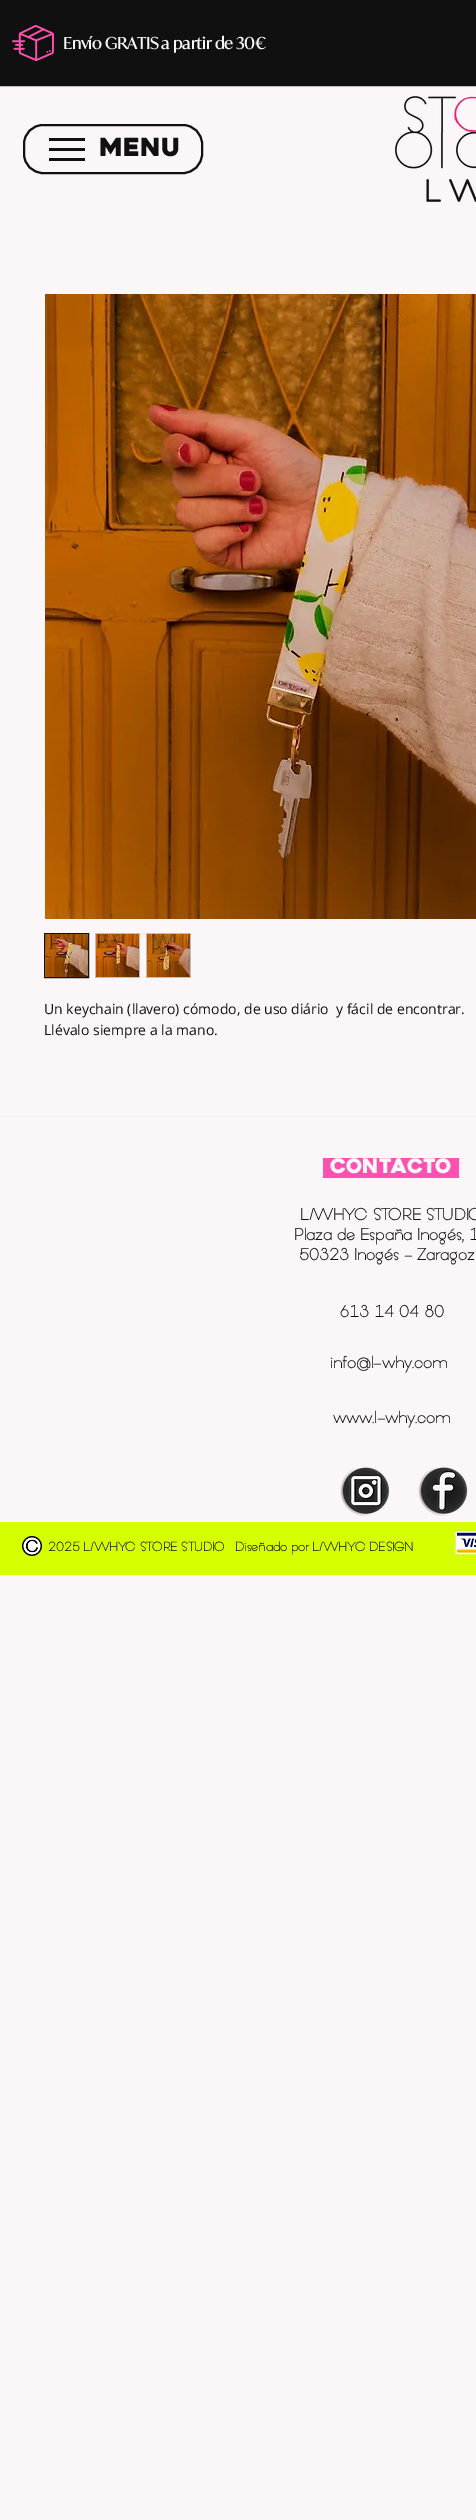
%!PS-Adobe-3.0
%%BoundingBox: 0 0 476 2520
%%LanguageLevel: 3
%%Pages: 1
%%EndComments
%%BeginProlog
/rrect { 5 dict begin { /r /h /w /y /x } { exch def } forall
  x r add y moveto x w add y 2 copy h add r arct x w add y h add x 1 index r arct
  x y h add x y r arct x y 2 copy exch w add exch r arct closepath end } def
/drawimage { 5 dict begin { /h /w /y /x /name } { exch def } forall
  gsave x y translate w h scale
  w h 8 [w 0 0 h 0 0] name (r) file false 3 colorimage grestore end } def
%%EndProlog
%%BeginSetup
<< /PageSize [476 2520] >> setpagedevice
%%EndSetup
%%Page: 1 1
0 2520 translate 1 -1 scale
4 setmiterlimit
0.984 0.965 0.973 setrgbcolor
0 0 476 2520 rectfill
0.753 0.741 0.753 setrgbcolor
0 86 476 1 rectfill
0.063 setgray
0 0 476 86 rectfill
(images/1.raw) 12 25 42 36 drawimage
0.067 0.067 0.078 setrgbcolor
2 setlinewidth
24 125 178 48 19 rrect stroke
49 158 36 3 rectfill
49 138 36 3 rectfill
49 148 36 3 rectfill
(images/2.raw) 395 96 81 106 drawimage
(images/3.raw) 45 294 431 625 drawimage
1 setlinewidth
44.5 933.5 44 44 rectstroke
(images/4.raw) 45 934 43 43 drawimage
0.753 0.741 0.753 setrgbcolor
95 933 45 45 rectfill
(images/5.raw) 96 934 43 43 drawimage
146 933 45 45 rectfill
(images/6.raw) 147 934 43 43 drawimage
0.949 0.937 0.902 setrgbcolor
0 1116 476 1 rectfill
1 0.318 0.69 setrgbcolor
323 1158 136 20 rectfill
(images/7.raw) 340 1467 50 49 drawimage
(images/8.raw) 418 1467 50 49 drawimage
0.839 1 0 setrgbcolor
0 1522 476 53 rectfill
(images/9.raw) 22 1536 20 20 drawimage
(images/10.raw) 455 1530 21 25 drawimage
/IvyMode-Bold [16 0 0 -16 0 0] selectfont
0.98 0.965 0.976 setrgbcolor
63 49 moveto (Envío GRATIS a partir de 30€) show
gsave
99 137 83 25 rectclip
/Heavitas-Regular [25 0 0 -25 0 0] selectfont
0.067 0.067 0.078 setrgbcolor
99 156 moveto (MENÚ) show
grestore
/OpenSans-Regular [14 0 0 -14 0 0] selectfont
0.067 0.067 0.078 setrgbcolor
44 1014 moveto (Un keychain \(llavero\) cómodo, de uso diário  y fácil de encontrar.) show
44 1035 moveto (Llévalo siempre a la mano.) show
/Heavitas-Regular [20 0 0 -20 0 0] selectfont
0.98 0.965 0.976 setrgbcolor
330 1173 moveto (CONTACTO) show
/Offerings-Bold [18 0 0 -18 0 0] selectfont
0.067 0.067 0.078 setrgbcolor
300 1220 moveto (L/WHYC STORE STUDIO) show
294 1240 moveto (Plaza de España Inogés, 1) show
299 1260 moveto (50323 Inogés - Zaragoz) show
339 1317 moveto (613 14 04 80) show
330 1368 moveto (info@l-why.com) show
333 1423 moveto (www.l-why.com) show
/Offerings-Bold [14 0 0 -14 0 0] selectfont
48 1551 moveto (2025 L/WHYC STORE STUDIO) show
235 1551 moveto (Diseñado por L/WHYC DESIGN) show
showpage
%%EOF
